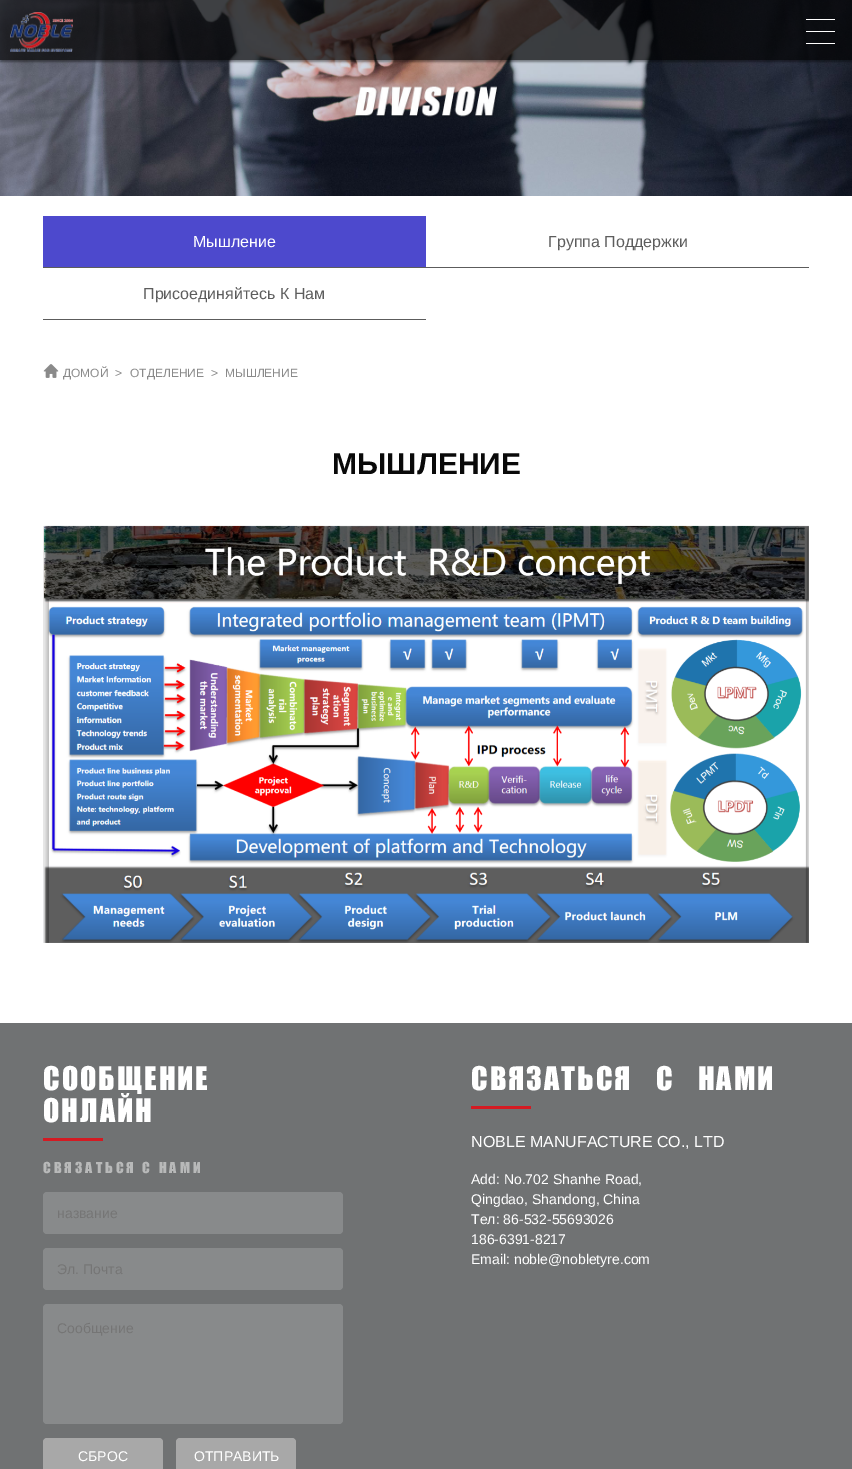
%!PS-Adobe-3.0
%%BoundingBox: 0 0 852 1469
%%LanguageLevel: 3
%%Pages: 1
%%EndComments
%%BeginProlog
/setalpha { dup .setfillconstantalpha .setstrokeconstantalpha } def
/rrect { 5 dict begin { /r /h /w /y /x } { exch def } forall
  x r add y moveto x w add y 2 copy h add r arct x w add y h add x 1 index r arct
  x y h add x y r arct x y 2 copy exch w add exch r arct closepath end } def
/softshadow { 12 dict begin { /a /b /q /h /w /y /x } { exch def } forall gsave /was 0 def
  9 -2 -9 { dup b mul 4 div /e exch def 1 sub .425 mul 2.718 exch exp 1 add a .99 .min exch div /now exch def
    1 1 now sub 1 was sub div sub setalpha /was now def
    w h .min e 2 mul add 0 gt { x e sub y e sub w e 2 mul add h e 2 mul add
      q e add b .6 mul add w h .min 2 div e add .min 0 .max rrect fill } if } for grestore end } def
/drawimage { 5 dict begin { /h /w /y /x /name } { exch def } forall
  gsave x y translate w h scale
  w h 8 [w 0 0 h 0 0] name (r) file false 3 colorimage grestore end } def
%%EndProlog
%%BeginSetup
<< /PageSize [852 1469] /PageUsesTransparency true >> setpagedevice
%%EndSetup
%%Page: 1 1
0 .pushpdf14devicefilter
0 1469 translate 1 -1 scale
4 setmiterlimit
1 setgray
0 0 852 1469 rectfill
(images/2.raw) 0 0 852 196 drawimage
gsave
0 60 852 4 rectclip
0 setgray
0 2 852 60 0 1 0.4 softshadow
grestore
0.7 setalpha
0 setgray
0 0 852 60 rectfill
1 setalpha
(images/1.raw) 10 12 63 40 drawimage
1 setgray
806 19 29 1 rectfill
806 31 29 1 rectfill
806 43 29 1 rectfill
0.302 0.286 0.804 setrgbcolor
43 216 383 51 rectfill
0.361 setgray
43 267 766 1 rectfill
43 319 383 1 rectfill
(images/3.raw) 43 364 16 14 drawimage
(images/4.raw) 43 525 766 418 drawimage
0.439 0.447 0.451 setrgbcolor
0 1023 852 446 rectfill
0.831 0.102 0.133 setrgbcolor
43 1138 60 3 rectfill
0.533 0.541 0.545 setrgbcolor
43 1192 300 42 4 rrect fill
43 1248 300 42 4 rrect fill
43 1304 300 120 4 rrect fill
0.659 setgray
43 1438 120 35 4 rrect fill
176 1438 120 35 4 rrect fill
0.831 0.102 0.133 setrgbcolor
471 1106 60 3 rectfill
/LiberationSans-Regular [16 0 0 -16 0 0] selectfont
1 setgray
193 247 moveto (Мышление) show
0.365 setgray
548 247 moveto (Группа Поддержки) show
143 299 moveto (Присоединяйтесь К Нам) show
/LiberationSans-Regular [12 0 0 -12 0 0] selectfont
0.541 setgray
63 377 moveto (ДОМОЙ) show
115 377 moveto (>) show
130 377 moveto (ОТДЕЛЕНИЕ) show
211 377 moveto (>) show
225 377 moveto (МЫШЛЕНИЕ) show
/LiberationSans-Bold [30 0 0 -30 0 0] selectfont
0.035 setgray
332 474 moveto (МЫШЛЕНИЕ) show
/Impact-Regular [30 0 0 -30 0 0] selectfont
1 setgray
43 1090 moveto 2 0 (СООБЩЕНИЕ) ashow
43 1122 moveto 2 0 (ОНЛАЙН) ashow
/Impact-Regular [14 0 0 -14 0 0] selectfont
0.722 0.725 0.725 setrgbcolor
43 1173 moveto 3 0 (СВЯЗАТЬСЯ С НАМИ) ashow
/LiberationSans-Regular [14 0 0 -14 0 0] selectfont
0.459 setgray
57 1218 moveto (название) show
57 1274 moveto (Эл. Почта) show
57 1333 moveto (Сообщение) show
1 setgray
78 1461 moveto (СБРОС) show
194 1461 moveto (ОТПРАВИТЬ) show
/Impact-Regular [30 0 0 -30 0 0] selectfont
471 1090 moveto 16 0 32 2 0 (СВЯЗАТЬСЯ С НАМИ) awidthshow
/LiberationSans-Regular [16 0 0 -16 0 0] selectfont
471 1147 moveto (NOBLE MANUFACTURE CO., LTD) show
/LiberationSans-Regular [14 0 0 -14 0 0] selectfont
471 1184 moveto (Add: No.702 Shanhe Road,) show
471 1204 moveto (Qingdao, Shandong, China) show
471 1224 moveto (Тел: 86-532-55693026) show
471 1244 moveto (186-6391-8217) show
471 1264 moveto (Email: noble@nobletyre.com) show
.poppdf14devicefilter showpage
%%EOF
